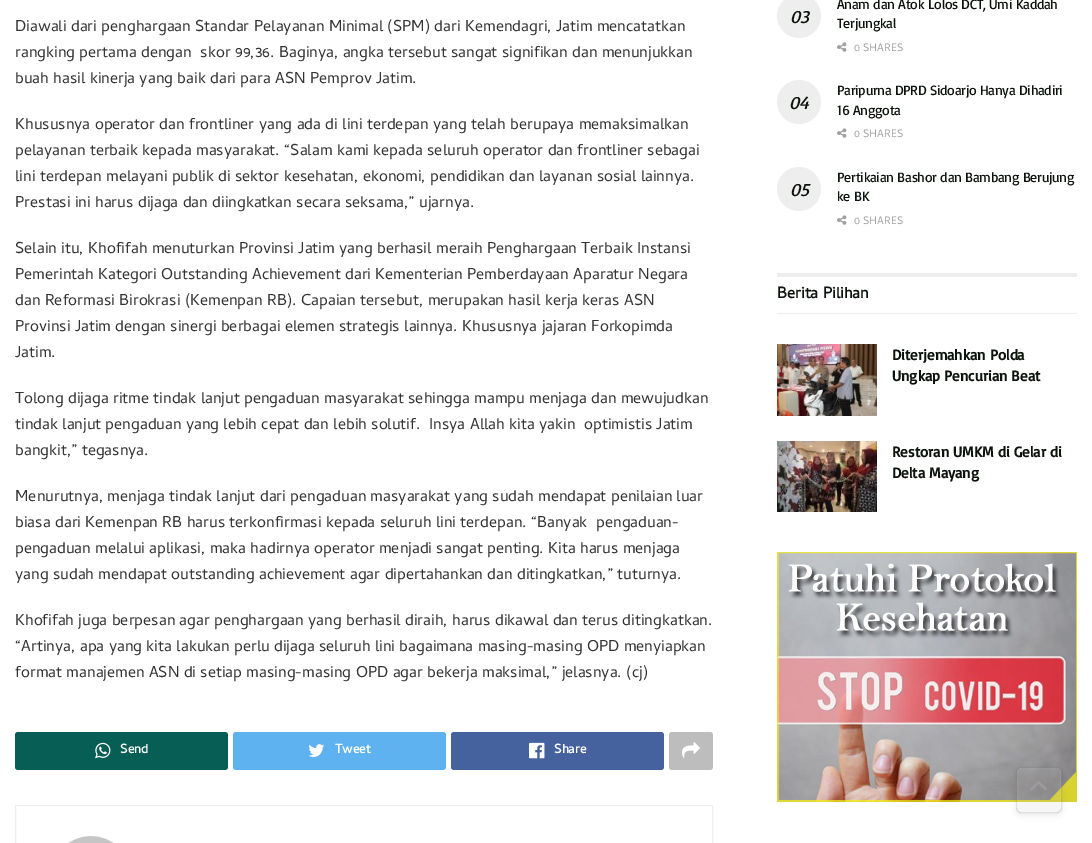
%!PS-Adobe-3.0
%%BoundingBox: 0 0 1092 843
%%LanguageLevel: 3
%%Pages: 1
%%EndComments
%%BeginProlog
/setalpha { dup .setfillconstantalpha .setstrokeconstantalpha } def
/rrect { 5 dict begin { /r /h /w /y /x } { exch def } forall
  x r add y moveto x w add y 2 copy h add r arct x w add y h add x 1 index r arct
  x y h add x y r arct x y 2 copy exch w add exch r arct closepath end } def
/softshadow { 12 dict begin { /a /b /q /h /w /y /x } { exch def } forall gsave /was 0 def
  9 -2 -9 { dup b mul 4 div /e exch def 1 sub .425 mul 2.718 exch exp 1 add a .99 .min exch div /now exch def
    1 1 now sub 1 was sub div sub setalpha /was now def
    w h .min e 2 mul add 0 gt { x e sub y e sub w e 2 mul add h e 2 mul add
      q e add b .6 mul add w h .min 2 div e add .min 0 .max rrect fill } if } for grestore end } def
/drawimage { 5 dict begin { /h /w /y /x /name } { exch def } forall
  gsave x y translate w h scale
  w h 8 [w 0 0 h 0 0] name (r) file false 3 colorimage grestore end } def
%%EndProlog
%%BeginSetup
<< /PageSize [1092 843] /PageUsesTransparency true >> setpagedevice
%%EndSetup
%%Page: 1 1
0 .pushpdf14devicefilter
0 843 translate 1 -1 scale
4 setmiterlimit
1 setgray
0 0 1092 843 rectfill
0.027 0.369 0.329 setrgbcolor
15 732 213 38 3 rrect fill
(images/1.raw) 95 742 16 17 drawimage
0.369 0.698 0.937 setrgbcolor
233 732 213 38 3 rrect fill
(images/2.raw) 308 744 17 13 drawimage
0.271 0.384 0.624 setrgbcolor
451 732 213 38 3 rrect fill
(images/3.raw) 529 742 16 17 drawimage
0.741 setgray
669 732 44 38 3 rrect fill
(images/4.raw) 682 742 18 17 drawimage
0.933 setgray
15.5 805.5 697 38 rectstroke
(images/5.raw) 68 836 46 7 drawimage
newpath 799 16 22 0 360 arc closepath fill
(images/6.raw) 837 42 10 10 drawimage
newpath 799 102 22 0 360 arc closepath fill
(images/6.raw) 837 128 10 10 drawimage
newpath 799 189 22 0 360 arc closepath fill
(images/6.raw) 837 215 10 10 drawimage
777 273 300 4 rectfill
777 313 300 1 rectfill
(images/7.raw) 777 344 100 72 drawimage
(images/8.raw) 777 441 100 71 drawimage
(images/9.raw) 777 552 300 250 drawimage
gsave
newpath 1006 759 moveto 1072 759 lineto 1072 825 lineto 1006 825 lineto closepath 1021 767 moveto 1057 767 lineto 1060 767 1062 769 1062 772 curveto 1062 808 lineto 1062 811 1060 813 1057 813 curveto 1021 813 lineto 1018 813 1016 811 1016 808 curveto 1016 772 lineto 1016 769 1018 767 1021 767 curveto closepath eoclip newpath
0 setgray
1016 769 46 46 5 3 0.08 softshadow
grestore
0.12 setalpha
0.71 setgray
1016 767 46 46 5 rrect fill
0.08 setalpha
1 setgray
1017.5 768.5 43 43 3.5 rrect stroke
0.09 setalpha
0 setgray
1016.5 767.5 45 45 4.5 rrect stroke
1 setalpha
(images/10.raw) 1030 781 17 10 drawimage
/Cambay-Regular [16 0 0 -16 0 0] selectfont
0.2 setgray
15 31 moveto (Diawali dari penghargaan Standar Pelayanan Minimal \(SPM\) dari Kemendagri, Jatim mencatatkan) show
15 57 moveto (rangking pertama dengan  skor 99,36. Baginya, angka tersebut sangat signifikan dan menunjukkan) show
15 83 moveto (buah hasil kinerja yang baik dari para ASN Pemprov Jatim.) show
15 129 moveto (Khususnya operator dan frontliner yang ada di lini terdepan yang telah berupaya memaksimalkan) show
15 155 moveto (pelayanan terbaik kepada masyarakat. “Salam kami kepada seluruh operator dan frontliner sebagai) show
15 181 moveto (lini terdepan melayani publik di sektor kesehatan, ekonomi, pendidikan dan layanan sosial lainnya.) show
15 207 moveto (Prestasi ini harus dijaga dan diingkatkan secara seksama,” ujarnya.) show
15 253 moveto (Selain itu, Khofifah menuturkan Provinsi Jatim yang berhasil meraih Penghargaan Terbaik Instansi) show
15 279 moveto (Pemerintah Kategori Outstanding Achievement dari Kementerian Pemberdayaan Aparatur Negara) show
15 305 moveto (dan Reformasi Birokrasi \(Kemenpan RB\). Capaian tersebut, merupakan hasil kerja keras ASN) show
15 331 moveto (Provinsi Jatim dengan sinergi berbagai elemen strategis lainnya. Khususnya jajaran Forkopimda) show
15 357 moveto (Jatim.) show
15 403 moveto (Tolong dijaga ritme tindak lanjut pengaduan masyarakat sehingga mampu menjaga dan mewujudkan) show
15 429 moveto (tindak lanjut pengaduan yang lebih cepat dan lebih solutif.  Insya Allah kita yakin  optimistis Jatim) show
15 455 moveto (bangkit,” tegasnya.) show
15 501 moveto (Menurutnya, menjaga tindak lanjut dari pengaduan masyarakat yang sudah mendapat penilaian luar) show
15 527 moveto (biasa dari Kemenpan RB harus terkonfirmasi kepada seluruh lini terdepan. “Banyak  pengaduan-) show
15 553 moveto (pengaduan melalui aplikasi, maka hadirnya operator menjadi sangat penting. Kita harus menjaga) show
15 579 moveto (yang sudah mendapat outstanding achievement agar dipertahankan dan ditingkatkan,” tuturnya.) show
15 625 moveto (Khofifah juga berpesan agar penghargaan yang berhasil diraih, harus dikawal dan terus ditingkatkan.) show
15 651 moveto (“Artinya, apa yang kita lakukan perlu dijaga seluruh lini bagaimana masing-masing OPD menyiapkan) show
15 677 moveto (format manajemen ASN di setiap masing-masing OPD agar bekerja maksimal,” jelasnya. \(cj\)) show
/Cambay-Bold [13 0 0 -13 0 0] selectfont
1 setgray
120 753 moveto (Send) show
335 753 moveto (Tweet) show
554 753 moveto (Share) show
/Basic-Regular [14 0 0 -14 0 0] selectfont
0.047 0.071 0.047 setrgbcolor
837 9 moveto -0.3 0 (Anam dan Atok Lolos DCT, Umi Kaddah) ashow
/Basic-Italic [18 0 0 -18 0 0] selectfont
790 23 moveto -0.3 0 (03) ashow
/Basic-Regular [14 0 0 -14 0 0] selectfont
837 28 moveto -0.3 0 (Terjungkal) ashow
/Cambay-Regular [11 0 0 -11 0 0] selectfont
0.627 setgray
854 51 moveto (0 SHARES) show
/Basic-Regular [14 0 0 -14 0 0] selectfont
0.047 0.071 0.047 setrgbcolor
837 95 moveto -0.3 0 (Paripurna DPRD Sidoarjo Hanya Dihadiri) ashow
/Basic-Italic [18 0 0 -18 0 0] selectfont
789 109 moveto -0.3 0 (04) ashow
/Basic-Regular [14 0 0 -14 0 0] selectfont
837 115 moveto -0.3 0 (16 Anggota) ashow
/Cambay-Regular [11 0 0 -11 0 0] selectfont
0.627 setgray
854 137 moveto (0 SHARES) show
/Basic-Regular [14 0 0 -14 0 0] selectfont
0.047 0.071 0.047 setrgbcolor
837 182 moveto -0.3 0 (Pertikaian Bashor dan Bambang Berujung) ashow
/Basic-Italic [18 0 0 -18 0 0] selectfont
790 196 moveto -0.3 0 (05) ashow
/Basic-Regular [14 0 0 -14 0 0] selectfont
837 201 moveto -0.3 0 (ke BK) ashow
/Cambay-Regular [11 0 0 -11 0 0] selectfont
0.627 setgray
854 224 moveto (0 SHARES) show
/Cambay-Bold [16 0 0 -16 0 0] selectfont
0.047 0.071 0.047 setrgbcolor
777 298 moveto (Berita Pilihan) show
/Basic-Bold [15 0 0 -15 0 0] selectfont
892 360 moveto (Diterjemahkan Polda) show
892 381 moveto (Ungkap Pencurian Beat) show
892 457 moveto (Restoran UMKM di Gelar di) show
892 478 moveto (Delta Mayang) show
.poppdf14devicefilter showpage
%%EOF
